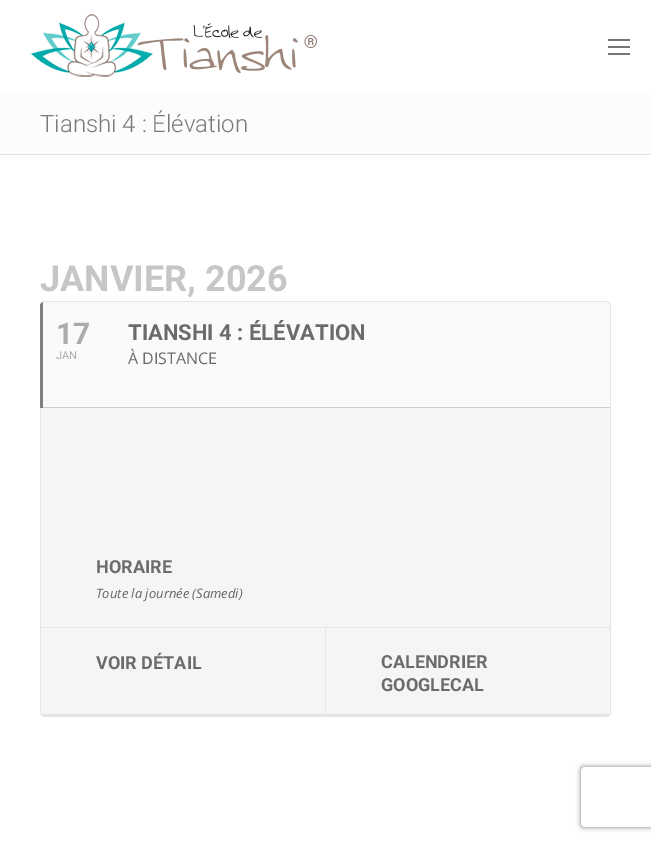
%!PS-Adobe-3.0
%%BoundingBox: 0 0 651 841
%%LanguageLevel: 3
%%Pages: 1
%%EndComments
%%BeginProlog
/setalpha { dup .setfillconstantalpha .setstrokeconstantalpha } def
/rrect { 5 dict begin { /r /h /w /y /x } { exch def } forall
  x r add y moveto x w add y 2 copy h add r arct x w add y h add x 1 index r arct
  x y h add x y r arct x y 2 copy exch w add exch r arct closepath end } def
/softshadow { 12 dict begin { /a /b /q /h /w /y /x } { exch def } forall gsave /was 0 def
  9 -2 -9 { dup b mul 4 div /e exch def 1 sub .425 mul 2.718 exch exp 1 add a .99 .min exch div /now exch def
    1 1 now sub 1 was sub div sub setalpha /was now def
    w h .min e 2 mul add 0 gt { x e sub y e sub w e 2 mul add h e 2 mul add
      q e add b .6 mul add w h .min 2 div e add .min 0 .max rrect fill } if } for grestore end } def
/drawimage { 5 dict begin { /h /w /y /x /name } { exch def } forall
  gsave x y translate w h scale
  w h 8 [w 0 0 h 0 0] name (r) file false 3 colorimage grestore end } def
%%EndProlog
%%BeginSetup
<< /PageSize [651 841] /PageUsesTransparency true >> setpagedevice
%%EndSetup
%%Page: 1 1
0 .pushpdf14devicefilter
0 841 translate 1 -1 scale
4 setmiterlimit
1 setgray
0 0 651 841 rectfill
(images/1.raw) 30 14 287 63 drawimage
0.459 setgray
608 39 22 2 rectfill
608 46 22 2 rectfill
608 53 22 2 rectfill
0.988 setgray
0 94 651 60 rectfill
0.89 setgray
0 154 651 1 rectfill
0.898 setgray
newpath 45 301 moveto 606 301 lineto 609 301 611 303 611 306 curveto 611 712 lineto 611 715 609 717 606 717 curveto 45 717 lineto 42 717 40 715 40 712 curveto 40 306 lineto 40 303 42 301 45 301 curveto closepath 45 302 moveto 606 302 lineto 608 302 610 304 610 306 curveto 610 712 lineto 610 714 608 716 606 716 curveto 45 716 lineto 42 716 40 714 40 712 curveto 40 306 lineto 40 304 42 302 45 302 curveto closepath eofill
0.98 setgray
newpath 45 302 moveto 42 302 40 304 40 306 curveto 40 408 lineto 610 408 lineto 610 306 lineto 610 304 608 302 606 302 curveto closepath fill
0.502 setgray
newpath 40 306 moveto 40 408 lineto 43 408 lineto 43 302 lineto 41 303 40 304 40 306 curveto closepath fill
0.804 setgray
43 407 567 1 rectfill
0.961 setgray
newpath 40 408 moveto 40 712 lineto 40 714 42 716 45 716 curveto 606 716 lineto 608 716 610 714 610 712 curveto 610 408 lineto closepath fill
0.898 setgray
newpath 45 716 moveto 606 716 lineto 609 715 lineto 42 715 lineto closepath fill
newpath 40 408 moveto 40 712 lineto 41 714 lineto 41 408 lineto closepath fill
41 627 569 1 rectfill
newpath 41 714 moveto 609 714 lineto 609 715 lineto 42 715 lineto closepath fill
325 628 1 86 rectfill
gsave
newpath 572 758 moveto 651 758 lineto 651 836 lineto 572 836 lineto closepath 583 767 moveto 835 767 lineto 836 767 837 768 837 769 curveto 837 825 lineto 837 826 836 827 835 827 curveto 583 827 lineto 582 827 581 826 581 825 curveto 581 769 lineto 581 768 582 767 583 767 curveto closepath eoclip newpath
0.502 setgray
581 767 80 60 2 2.5 1 softshadow
grestore
/Roboto-Light [24 0 0 -24 0 0] selectfont
0.478 setgray
40 132 moveto (Tianshi 4 : Élévation) show
/Roboto-Bold [36 0 0 -36 0 0] selectfont
0.776 setgray
40 291 moveto (JANVIER, 2026) show
/Roboto-Bold [30 0 0 -30 0 0] selectfont
0.671 setgray
56 344 moveto (17) show
/Roboto-Regular [11 0 0 -11 0 0] selectfont
56 359 moveto (JAN) show
/Roboto-Bold [22 0 0 -22 0 0] selectfont
0.42 setgray
128 340 moveto (TIANSHI 4 : ÉLÉVATION) show
/OpenSans-Regular [16 0 0 -16 0 0] selectfont
128 364 moveto (À DISTANCE) show
/Roboto-Bold [18 0 0 -18 0 0] selectfont
96 573 moveto (HORAIRE) show
/OpenSans-Italic [13 0 0 -13 0 0] selectfont
0.396 setgray
96 598 moveto (Toute la journée \(Samedi\)) show
/Roboto-Bold [18 0 0 -18 0 0] selectfont
0.42 setgray
96 669 moveto (VOIR DÉTAIL) show
381 668 moveto (CALENDRIER) show
381 691 moveto (GOOGLECAL) show
.poppdf14devicefilter showpage
%%EOF
